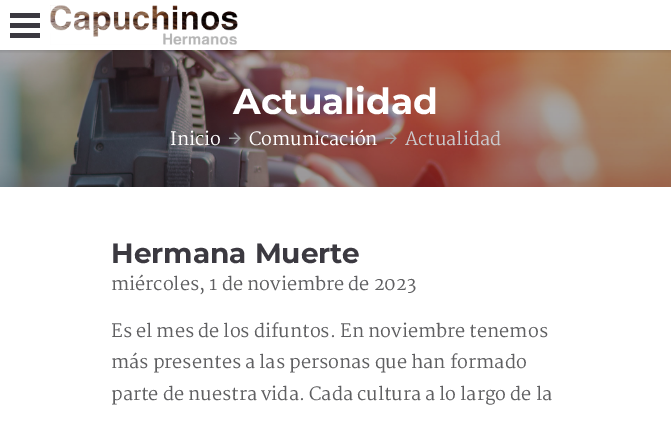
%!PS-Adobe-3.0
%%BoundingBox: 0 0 671 424
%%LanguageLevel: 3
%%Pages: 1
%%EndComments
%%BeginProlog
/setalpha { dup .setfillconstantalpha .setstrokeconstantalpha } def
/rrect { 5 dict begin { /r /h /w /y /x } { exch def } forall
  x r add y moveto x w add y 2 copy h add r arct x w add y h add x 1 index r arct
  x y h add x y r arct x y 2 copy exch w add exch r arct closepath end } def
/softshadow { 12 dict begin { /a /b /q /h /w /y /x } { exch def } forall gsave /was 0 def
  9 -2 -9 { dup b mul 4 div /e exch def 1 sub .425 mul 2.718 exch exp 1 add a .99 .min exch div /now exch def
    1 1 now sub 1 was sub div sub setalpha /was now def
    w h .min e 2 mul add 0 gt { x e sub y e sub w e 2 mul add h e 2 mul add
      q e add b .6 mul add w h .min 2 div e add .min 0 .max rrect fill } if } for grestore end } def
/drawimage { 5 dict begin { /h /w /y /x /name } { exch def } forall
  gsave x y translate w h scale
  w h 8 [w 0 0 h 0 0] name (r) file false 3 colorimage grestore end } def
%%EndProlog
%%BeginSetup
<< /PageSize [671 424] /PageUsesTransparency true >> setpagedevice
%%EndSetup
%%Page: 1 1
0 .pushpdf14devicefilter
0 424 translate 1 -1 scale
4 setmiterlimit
1 setgray
0 0 671 424 rectfill
(images/2.raw) 0 50 671 137 drawimage
gsave
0 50 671 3 rectclip
0 setgray
0 1 671 50 0 2 0.15 softshadow
grestore
0.231 0.224 0.251 setrgbcolor
10 23 30 5 rectfill
10 13 30 5 rectfill
10 33 30 5 rectfill
(images/1.raw) 50 5 188 40 drawimage
(images/3.raw) 229 132 12 12 drawimage
(images/4.raw) 385 132 12 12 drawimage
/Montserrat-Bold [36 0 0 -36 0 0] selectfont
1 setgray
233 114 moveto (Actualidad) show
/Martel-Regular [18 0 0 -18 0 0] selectfont
170 145 moveto (Inicio) show
249 145 moveto (Comunicación) show
0.792 0.792 0.804 setrgbcolor
405 145 moveto (Actualidad) show
/Montserrat-Bold [28 0 0 -28 0 0] selectfont
0.231 0.224 0.251 setrgbcolor
111 263 moveto (Hermana Muerte) show
/Martel-Regular [18 0 0 -18 0 0] selectfont
0.373 0.373 0.38 setrgbcolor
111 290 moveto (miércoles, 1 de noviembre de 2023) show
111 337 moveto (Es el mes de los difuntos. En noviembre tenemos) show
111 368 moveto (más presentes a las personas que han formado) show
111 400 moveto (parte de nuestra vida. Cada cultura a lo largo de la) show
.poppdf14devicefilter showpage
%%EOF
